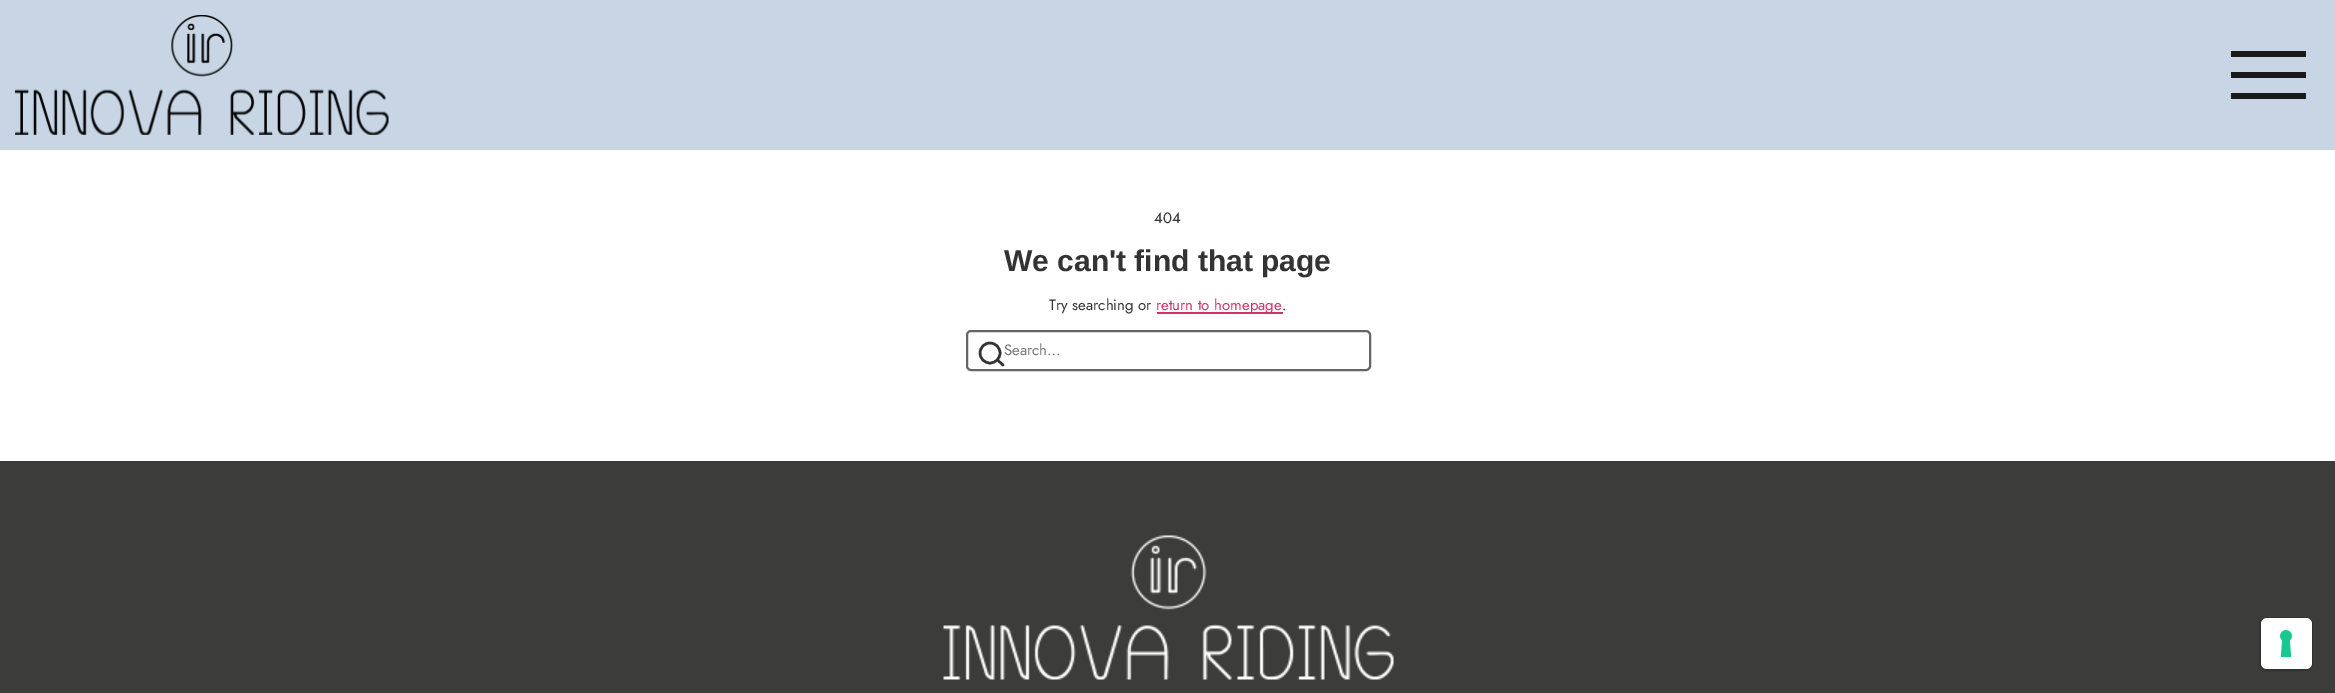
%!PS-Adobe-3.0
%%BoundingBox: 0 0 2335 693
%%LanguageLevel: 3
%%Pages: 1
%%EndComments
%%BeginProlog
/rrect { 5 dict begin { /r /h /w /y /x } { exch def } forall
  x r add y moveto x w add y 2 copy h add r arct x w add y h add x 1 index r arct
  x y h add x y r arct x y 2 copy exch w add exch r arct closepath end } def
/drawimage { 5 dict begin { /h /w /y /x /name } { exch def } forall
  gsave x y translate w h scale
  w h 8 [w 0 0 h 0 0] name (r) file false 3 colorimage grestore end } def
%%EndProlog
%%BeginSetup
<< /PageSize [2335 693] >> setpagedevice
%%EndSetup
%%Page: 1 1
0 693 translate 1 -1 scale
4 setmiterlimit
1 setgray
0 0 2335 693 rectfill
0.78 0.835 0.898 setrgbcolor
0 0 2335 150 rectfill
(images/1.raw) 15 15 374 120 drawimage
0.102 setgray
2231 51 75 6 rectfill
2231 72 75 6 rectfill
2231 93 75 6 rectfill
0.8 0.2 0.4 setrgbcolor
1157 312 126 2 rectfill
0.4 setgray
2 setlinewidth
967 331 403 39 4 rrect stroke
0.2 setgray
2.5 setlinewidth
newpath 990 353 10 0 360 arc closepath stroke
1 setlinecap
1 setlinejoin
newpath 1003 365 moveto 997.5 360 lineto stroke
0.235 0.235 0.231 setrgbcolor
0 461 2335 232 rectfill
(images/2.raw) 943 535 451 145 drawimage
0.2 0.2 0.196 setrgbcolor
2 setlinewidth
0 setlinecap
0 setlinejoin
2260 618 52 52 7 rrect stroke
1 setgray
2261 618 51 51 6 rrect fill
(images/3.raw) 2280 630 12 27 drawimage
/Jost-Regular [15 0 0 -15 0 0] selectfont
0.2 setgray
1154 223 moveto (404) show
/LiberationSans-Bold [30 0 0 -30 0 0] selectfont
1004 271 moveto (We can't find that page) show
/Jost-Regular [15 0 0 -15 0 0] selectfont
1049 310 moveto (Try searching or) show
0.8 0.2 0.4 setrgbcolor
1156 310 moveto (return to homepage) show
0.2 setgray
1282 310 moveto (.) show
0.459 setgray
1004 355 moveto (Search…) show
showpage
%%EOF
